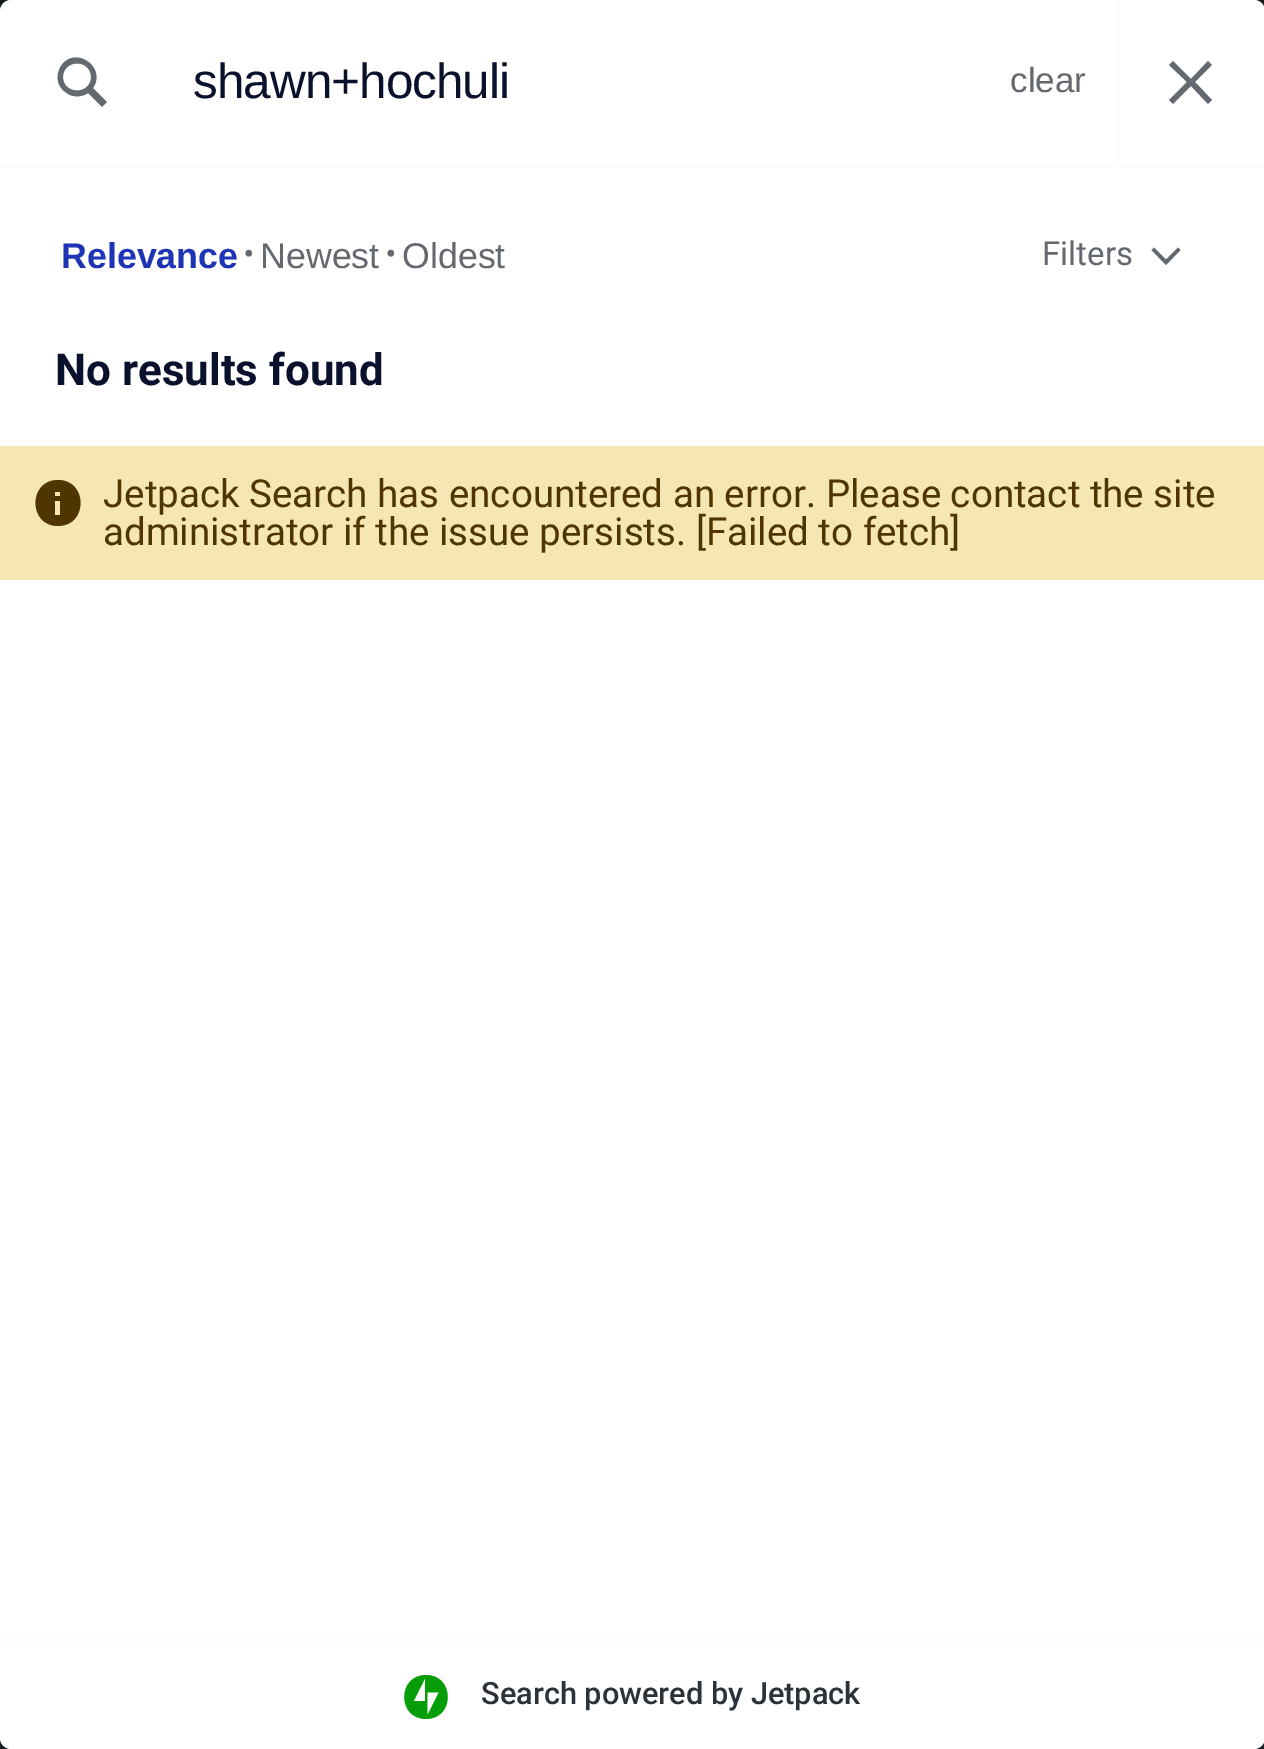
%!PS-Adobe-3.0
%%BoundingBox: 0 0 1264 1749
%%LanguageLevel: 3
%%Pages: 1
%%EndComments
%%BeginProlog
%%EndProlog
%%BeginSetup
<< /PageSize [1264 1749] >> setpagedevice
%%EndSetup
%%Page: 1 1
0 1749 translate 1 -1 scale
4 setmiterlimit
0.098 0.118 0.125 setrgbcolor
0 0 1264 1749 rectfill
0.078 0.098 0.106 setrgbcolor
0 0 1264 11 rectfill
1 setgray
newpath 11 0 moveto 1254 0 lineto 1260 0 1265 5 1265 11 curveto 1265 1639 lineto 0 1639 lineto 0 11 lineto 0 5 5 0 11 0 curveto closepath fill
0.984 0.988 0.996 setrgbcolor
1117 0 3 168 rectfill
0 165 1264 3 rectfill
0.392 0.412 0.439 setrgbcolor
newpath 107 102 moveto 93 88 lineto 107 67 75 45 61 66 curveto 58 71 57 76 58 81 curveto 59 87 64 92 70 95 curveto 75 97 82 97 88 93 curveto 102 107 lineto closepath 63 77 moveto 63 59 91 59 91 77 curveto 91 95 63 95 63 77 curveto closepath fill
newpath 1208 104 moveto 1191 86 lineto 1173 104 lineto 1169 100 lineto 1187 82 lineto 1169 65 lineto 1173 61 lineto 1191 79 lineto 1208 61 lineto 1212 65 lineto 1195 82 lineto 1212 100 lineto closepath fill
newpath 1180.5 250 moveto 1166 265 lineto 1151.5 250 lineto 1154 247.5 lineto 1166 259.5 lineto 1178 247.5 lineto fill
0.961 0.902 0.702 setrgbcolor
0 446 1264 134 rectfill
0.31 0.208 0 setrgbcolor
newpath 58 480 moveto 28 480 28 526 58 526 curveto 88 526 88 480 58 480 curveto closepath 60 515 moveto 55 515 lineto 55 501 lineto 60 501 lineto closepath 60 496 moveto 55 496 lineto 55 492 lineto 60 492 lineto closepath fill
1 setgray
newpath 0 1639 moveto 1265 1639 lineto 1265 1738 lineto 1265 1744 1260 1749 1254 1749 curveto 11 1749 lineto 5 1749 0 1744 0 1738 curveto closepath fill
0.984 0.988 0.996 setrgbcolor
0 1639 1264 3 rectfill
0.024 0.62 0.031 setrgbcolor
newpath 426 1675 moveto 397 1675 397 1719 426 1719 curveto 455 1719 455 1675 426 1675 curveto closepath fill
1 setgray
newpath 425 1701 moveto 414 1701 lineto 425 1679 lineto closepath 427.5 1714.5 moveto 427.5 1692.5 lineto 438.5 1692.5 lineto closepath fill
/LiberationSans-Regular [49.5 0 0 -49.5 0 0] selectfont
0.039 0.067 0.176 setrgbcolor
193 98 moveto -1 0 (shawn+hochuli) ashow
/LiberationSans-Regular [35 0 0 -35 0 0] selectfont
0.392 0.412 0.439 setrgbcolor
1010 92 moveto (clear) show
/LiberationSans-Bold [35.75 0 0 -35.75 0 0] selectfont
0.114 0.208 0.706 setrgbcolor
61 268 moveto (Relevance) show
/Roboto-Light [35.75 0 0 -35.75 0 0] selectfont
0.392 0.412 0.439 setrgbcolor
243 266 moveto (•) show
/LiberationSans-Regular [35.75 0 0 -35.75 0 0] selectfont
260 268 moveto (Newest) show
/Roboto-Light [35.75 0 0 -35.75 0 0] selectfont
385 266 moveto (•) show
/LiberationSans-Regular [35.75 0 0 -35.75 0 0] selectfont
402 268 moveto (Oldest) show
/Roboto-Regular [33 0 0 -33 0 0] selectfont
1042 265 moveto (Filters) show
/Roboto-Bold [44 0 0 -44 0 0] selectfont
0.039 0.067 0.176 setrgbcolor
55 385 moveto (No results found) show
/Roboto-Regular [38.5 0 0 -38.5 0 0] selectfont
0.31 0.208 0 setrgbcolor
103 507 moveto (Jetpack Search has encountered an error. Please contact the site) show
103 545 moveto (administrator if the issue persists. [Failed to fetch]) show
/Roboto-Medium [30.75 0 0 -30.75 0 0] selectfont
0.173 0.2 0.22 setrgbcolor
481 1704 moveto (Search powered by Jetpack) show
showpage
%%EOF
